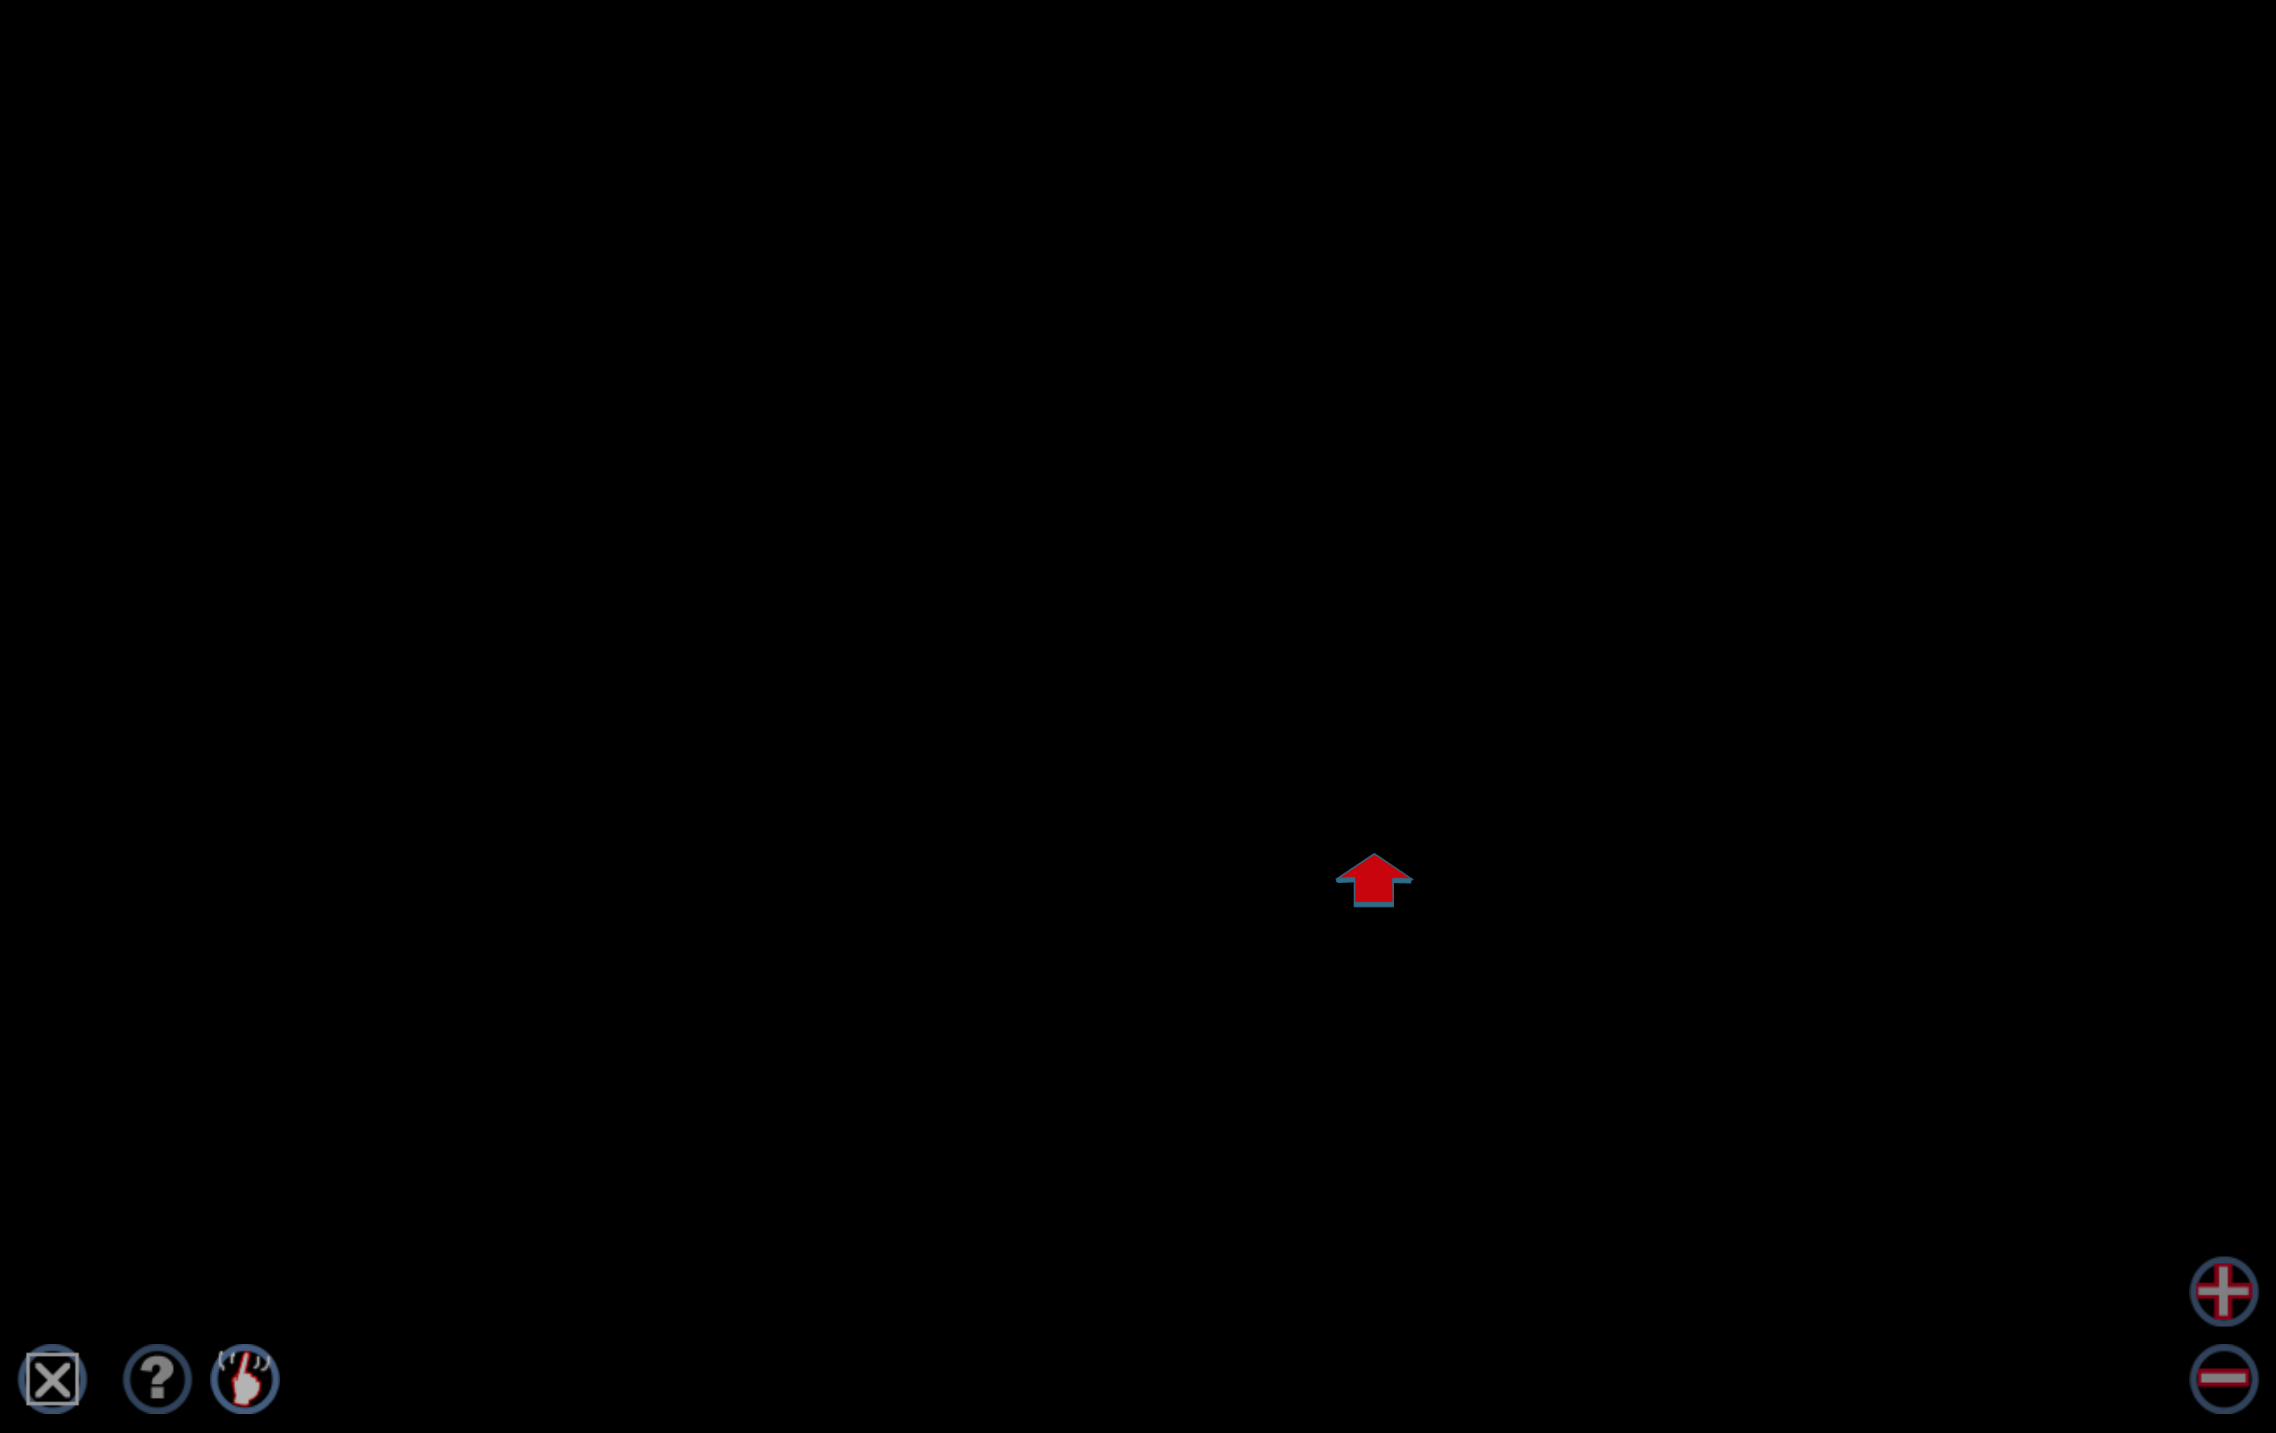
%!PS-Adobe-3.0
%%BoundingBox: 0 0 2276 1433
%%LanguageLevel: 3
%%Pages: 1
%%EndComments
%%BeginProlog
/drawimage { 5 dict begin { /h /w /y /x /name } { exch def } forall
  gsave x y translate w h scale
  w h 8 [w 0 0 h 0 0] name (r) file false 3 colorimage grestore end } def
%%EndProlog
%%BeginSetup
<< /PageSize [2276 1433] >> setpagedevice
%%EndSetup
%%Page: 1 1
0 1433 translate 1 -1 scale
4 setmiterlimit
0 setgray
0 0 2276 1433 rectfill
(images/1.raw) 1335 853 79 55 drawimage
(images/2.raw) 17 1344 71 70 drawimage
(images/3.raw) 122 1344 71 70 drawimage
(images/4.raw) 210 1344 70 70 drawimage
(images/5.raw) 2189 1256 71 71 drawimage
(images/6.raw) 2189 1344 71 70 drawimage
showpage
%%EOF
